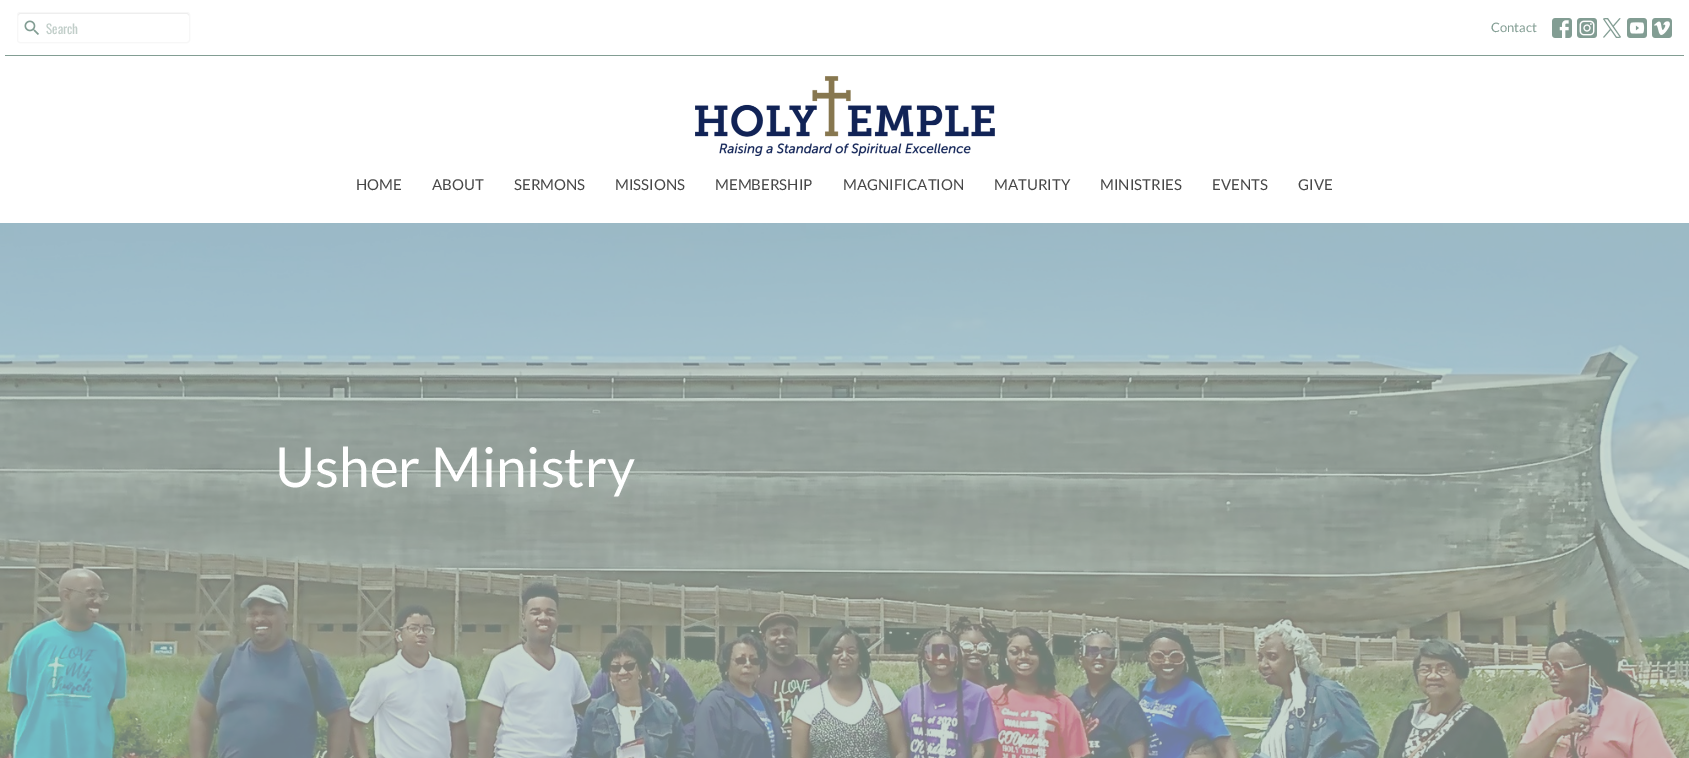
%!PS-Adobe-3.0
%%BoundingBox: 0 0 1689 758
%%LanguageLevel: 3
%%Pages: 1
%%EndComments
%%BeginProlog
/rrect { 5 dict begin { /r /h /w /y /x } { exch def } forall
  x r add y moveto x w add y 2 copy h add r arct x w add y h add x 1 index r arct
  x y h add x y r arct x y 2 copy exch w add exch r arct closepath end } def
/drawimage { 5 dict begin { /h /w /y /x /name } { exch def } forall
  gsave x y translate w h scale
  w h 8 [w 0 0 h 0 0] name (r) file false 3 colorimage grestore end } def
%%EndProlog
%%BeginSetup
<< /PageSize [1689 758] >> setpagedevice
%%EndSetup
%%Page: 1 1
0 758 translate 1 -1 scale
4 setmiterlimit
1 setgray
0 0 1689 758 rectfill
0.51 0.616 0.576 setrgbcolor
5 55 1679 1 rectfill
0.925 setgray
newpath 20 14 moveto 187 14 lineto 188 14 189 15 189 16 curveto 189 15 189 13 187 13 curveto 19 13 lineto 18 14 18 15 18 16 curveto 18 15 19 14 20 14 curveto closepath fill
0.969 setgray
17.5 12.5 172 30 2.5 rrect stroke
(images/1.raw) 24 20 15 15 drawimage
(images/2.raw) 1552 18 20 20 drawimage
(images/3.raw) 1577 18 20 20 drawimage
(images/4.raw) 1603 18 18 20 drawimage
(images/5.raw) 1627 18 20 20 drawimage
(images/6.raw) 1652 18 20 20 drawimage
(images/7.raw) 695 76 300 80 drawimage
(images/8.raw) 0 223 1689 535 drawimage
/Oswald-Regular [13 0 0 -13 0 0] selectfont
0.757 0.808 0.788 setrgbcolor
46 34 moveto (Search) show
/Lato-Regular [13 0 0 -13 0 0] selectfont
0.51 0.616 0.576 setrgbcolor
1491 32 moveto (Contact) show
/Lato-Regular [15 0 0 -15 0 0] selectfont
0.278 setgray
356 190 moveto (HOME) show
432 190 moveto (ABOUT) show
514 190 moveto (SERMONS) show
615 190 moveto (MISSIONS) show
715 190 moveto (MEMBERSHIP) show
843 190 moveto (MAGNIFICATION) show
994 190 moveto (MATURITY) show
1100 190 moveto (MINISTRIES) show
1212 190 moveto (EVENTS) show
1298 190 moveto (GIVE) show
/Lato-Regular [55 0 0 -55 0 0] selectfont
1 setgray
275 487 moveto (Usher Ministry) show
showpage
%%EOF
